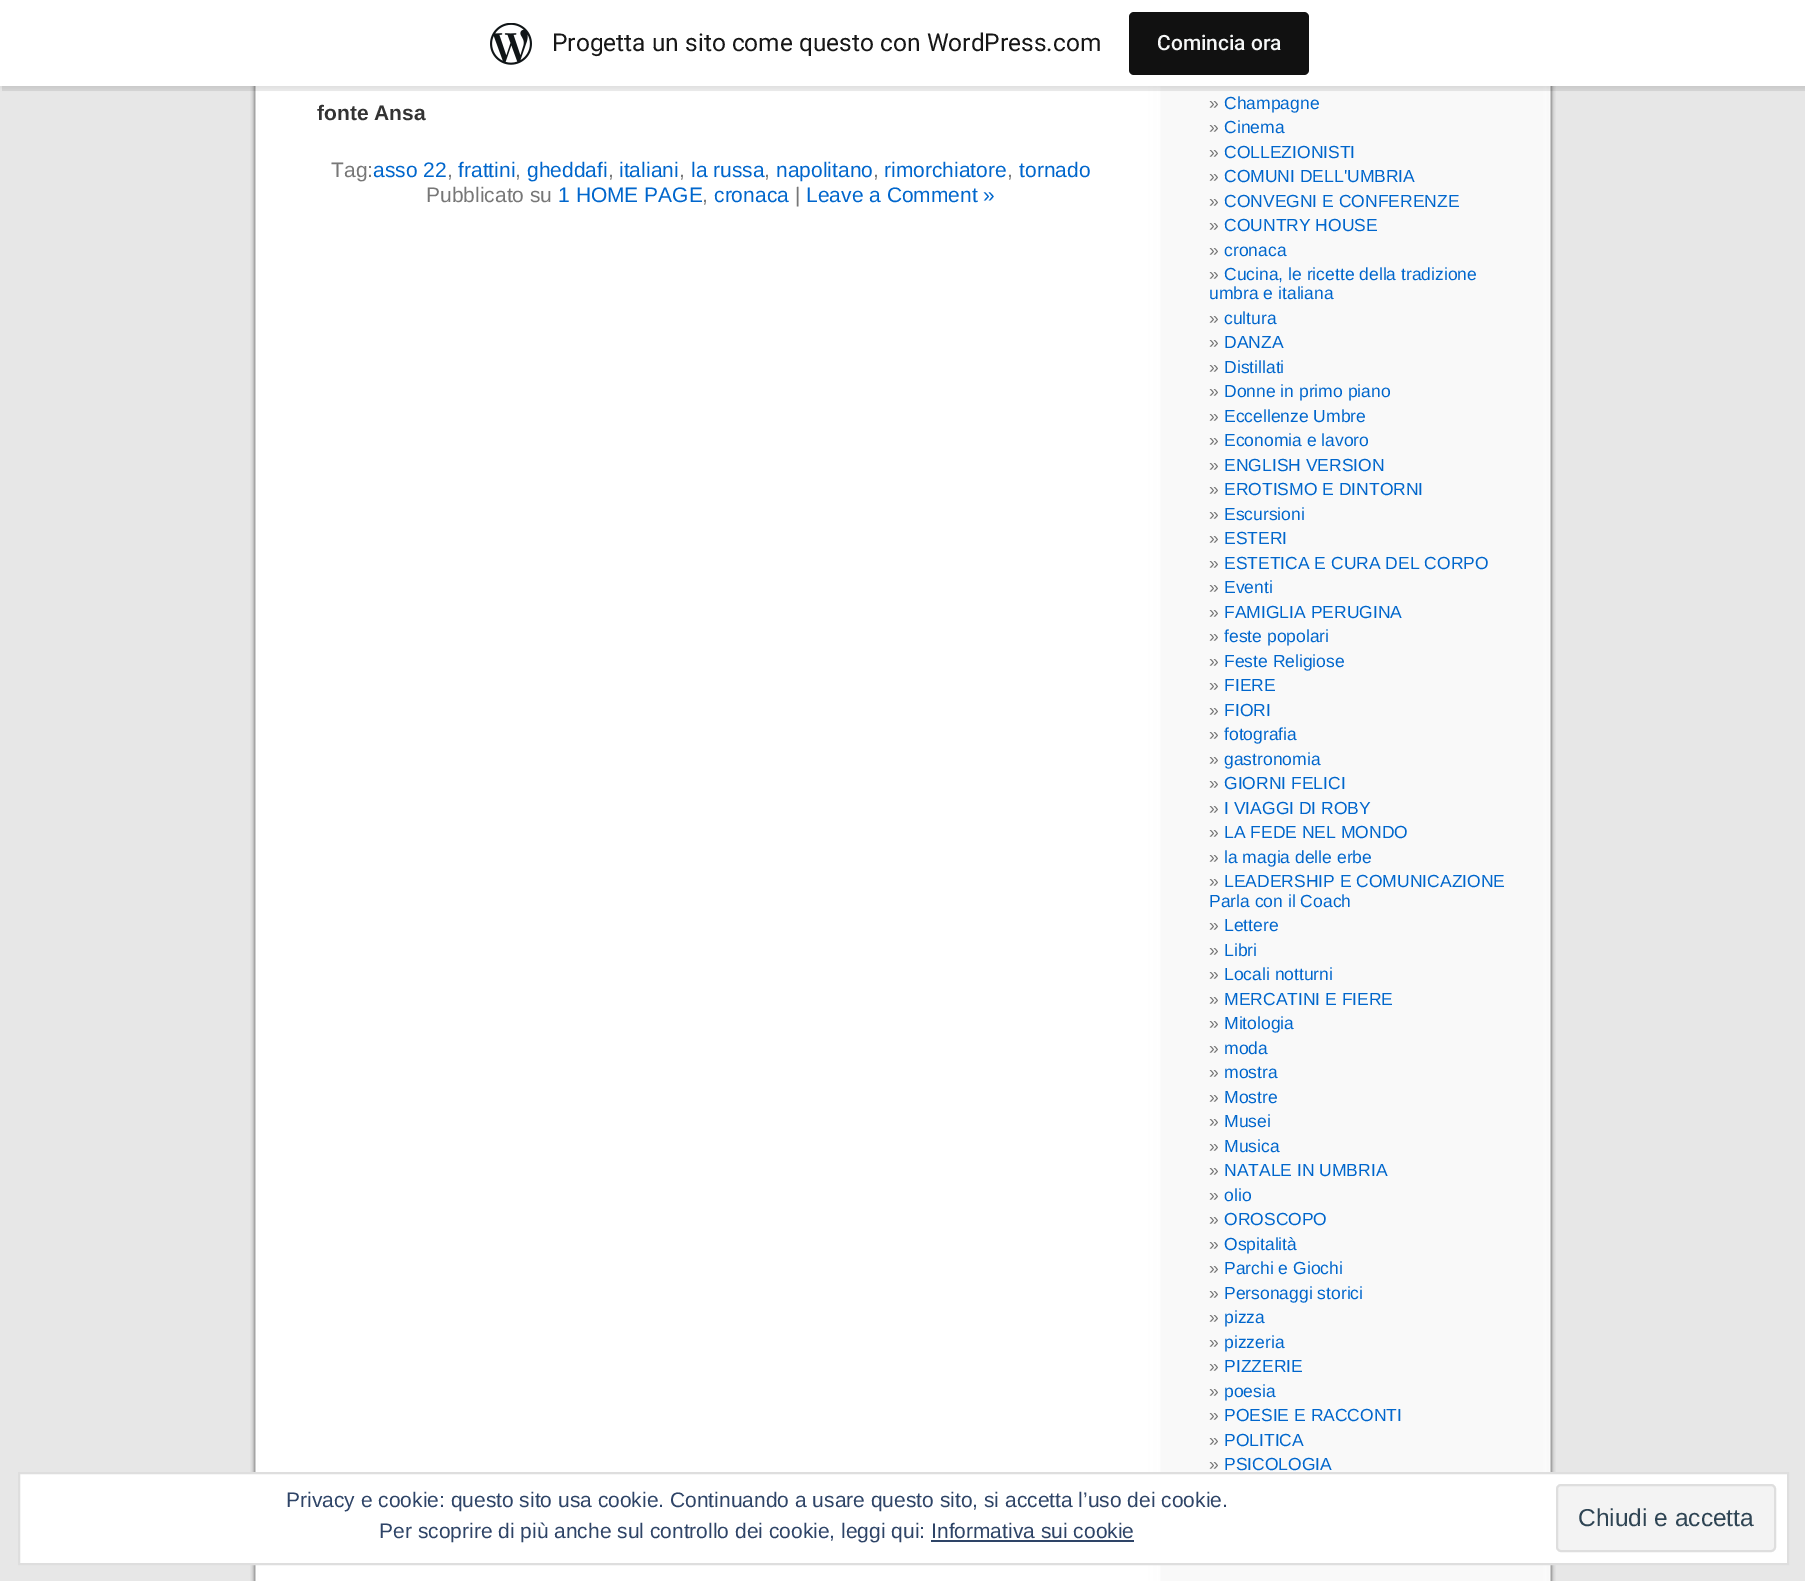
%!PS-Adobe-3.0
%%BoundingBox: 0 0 1805 1581
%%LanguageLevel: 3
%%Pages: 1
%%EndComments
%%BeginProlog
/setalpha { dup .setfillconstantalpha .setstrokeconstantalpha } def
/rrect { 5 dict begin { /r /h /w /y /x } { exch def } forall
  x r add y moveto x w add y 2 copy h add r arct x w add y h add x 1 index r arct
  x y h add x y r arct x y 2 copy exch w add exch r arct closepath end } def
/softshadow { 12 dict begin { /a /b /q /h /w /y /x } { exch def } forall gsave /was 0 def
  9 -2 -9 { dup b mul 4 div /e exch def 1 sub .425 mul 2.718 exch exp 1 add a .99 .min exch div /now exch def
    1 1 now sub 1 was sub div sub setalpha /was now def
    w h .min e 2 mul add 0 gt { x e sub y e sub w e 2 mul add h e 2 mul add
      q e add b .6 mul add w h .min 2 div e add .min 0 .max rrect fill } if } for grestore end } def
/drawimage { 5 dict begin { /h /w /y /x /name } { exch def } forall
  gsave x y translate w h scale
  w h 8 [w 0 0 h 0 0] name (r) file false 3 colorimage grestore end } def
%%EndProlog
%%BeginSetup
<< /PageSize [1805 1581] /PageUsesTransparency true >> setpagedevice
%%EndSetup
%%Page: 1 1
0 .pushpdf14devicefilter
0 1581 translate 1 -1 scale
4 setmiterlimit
0.906 setgray
0 0 1805 1581 rectfill
(images/2.raw) 250 86 1306 1495 drawimage
0 setgray
0 2 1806 86 0 2 0.05 softshadow
0.08 setalpha
newpath 2 86 moveto 2 91 lineto 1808 91 lineto 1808 5 lineto 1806 5 lineto 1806 86 lineto closepath fill
1 setalpha
1 setgray
0 0 1805 86 rectfill
(images/1.raw) 490 23 42 42 drawimage
0.067 setgray
1129 12 180 63 5 rrect fill
1 setgray
newpath 19 1473 moveto 1788 1473 lineto 1788 1564 lineto 19 1564 lineto closepath gsave fill grestore
0.871 setgray
2 setlinewidth
stroke
0.953 setgray
1557 1485 218 66 4 rrect gsave fill grestore
0.871 setgray
stroke
0.18 0.267 0.404 setrgbcolor
931 1540 203 2 rectfill
/Roboto-Regular [24.5 0 0 -24.5 0 0] selectfont
0.09 setgray
552 51 moveto (Progetta un sito come questo con WordPress.com) show
/Roboto-Medium [21 0 0 -21 0 0] selectfont
0.965 0.969 0.969 setrgbcolor
1157 50 moveto (Comincia ora) show
/LiberationSans-Bold [21 0 0 -21 0 0] selectfont
0.2 setgray
317 120 moveto (fonte Ansa) show
/LiberationSans-Regular [21 0 0 -21 0 0] selectfont
0.467 setgray
331 177 moveto (Tag:) show
0 0.4 0.8 setrgbcolor
373 177 moveto (asso 22) show
0.467 setgray
447 177 moveto (,) show
0 0.4 0.8 setrgbcolor
458 177 moveto (frattini) show
0.467 setgray
515 177 moveto (,) show
0 0.4 0.8 setrgbcolor
527 177 moveto (gheddafi) show
0.467 setgray
608 177 moveto (,) show
0 0.4 0.8 setrgbcolor
619 177 moveto (italiani) show
0.467 setgray
679 177 moveto (,) show
0 0.4 0.8 setrgbcolor
691 177 moveto (la russa) show
0.467 setgray
764 177 moveto (,) show
0 0.4 0.8 setrgbcolor
776 177 moveto (napolitano) show
0.467 setgray
873 177 moveto (,) show
0 0.4 0.8 setrgbcolor
884 177 moveto (rimorchiatore) show
0.467 setgray
1007 177 moveto (,) show
0 0.4 0.8 setrgbcolor
1019 177 moveto (tornado) show
0.467 setgray
426 202 moveto (Pubblicato su) show
0 0.4 0.8 setrgbcolor
558 202 moveto (1 HOME PAGE) show
0.467 setgray
702 202 moveto (,) show
0 0.4 0.8 setrgbcolor
714 202 moveto (cronaca) show
0.467 setgray
795 202 moveto (|) show
0 0.4 0.8 setrgbcolor
806 202 moveto (Leave a Comment ») show
/LiberationSans-Regular [17.5 0 0 -17.5 0 0] selectfont
0.467 setgray
1209 109 moveto (») show
0 0.4 0.8 setrgbcolor
1224 109 moveto (Champagne) show
0.467 setgray
1209 133 moveto (») show
0 0.4 0.8 setrgbcolor
1224 133 moveto (Cinema) show
0.467 setgray
1209 158 moveto (») show
0 0.4 0.8 setrgbcolor
1224 158 moveto (COLLEZIONISTI) show
0.467 setgray
1209 182 moveto (») show
0 0.4 0.8 setrgbcolor
1224 182 moveto (COMUNI DELL'UMBRIA) show
0.467 setgray
1209 207 moveto (») show
0 0.4 0.8 setrgbcolor
1224 207 moveto (CONVEGNI E CONFERENZE) show
0.467 setgray
1209 231 moveto (») show
0 0.4 0.8 setrgbcolor
1224 231 moveto (COUNTRY HOUSE) show
0.467 setgray
1209 256 moveto (») show
0 0.4 0.8 setrgbcolor
1224 256 moveto (cronaca) show
0.467 setgray
1209 280 moveto (») show
0 0.4 0.8 setrgbcolor
1224 280 moveto (Cucina, le ricette della tradizione) show
1209 299 moveto (umbra e italiana) show
0.467 setgray
1209 324 moveto (») show
0 0.4 0.8 setrgbcolor
1224 324 moveto (cultura) show
0.467 setgray
1209 348 moveto (») show
0 0.4 0.8 setrgbcolor
1224 348 moveto (DANZA) show
0.467 setgray
1209 373 moveto (») show
0 0.4 0.8 setrgbcolor
1224 373 moveto (Distillati) show
0.467 setgray
1209 397 moveto (») show
0 0.4 0.8 setrgbcolor
1224 397 moveto (Donne in primo piano) show
0.467 setgray
1209 422 moveto (») show
0 0.4 0.8 setrgbcolor
1224 422 moveto (Eccellenze Umbre) show
0.467 setgray
1209 446 moveto (») show
0 0.4 0.8 setrgbcolor
1224 446 moveto (Economia e lavoro) show
0.467 setgray
1209 471 moveto (») show
0 0.4 0.8 setrgbcolor
1224 471 moveto (ENGLISH VERSION) show
0.467 setgray
1209 495 moveto (») show
0 0.4 0.8 setrgbcolor
1224 495 moveto (EROTISMO E DINTORNI) show
0.467 setgray
1209 520 moveto (») show
0 0.4 0.8 setrgbcolor
1224 520 moveto (Escursioni) show
0.467 setgray
1209 544 moveto (») show
0 0.4 0.8 setrgbcolor
1224 544 moveto (ESTERI) show
0.467 setgray
1209 569 moveto (») show
0 0.4 0.8 setrgbcolor
1224 569 moveto (ESTETICA E CURA DEL CORPO) show
0.467 setgray
1209 593 moveto (») show
0 0.4 0.8 setrgbcolor
1224 593 moveto (Eventi) show
0.467 setgray
1209 618 moveto (») show
0 0.4 0.8 setrgbcolor
1224 618 moveto (FAMIGLIA PERUGINA) show
0.467 setgray
1209 642 moveto (») show
0 0.4 0.8 setrgbcolor
1224 642 moveto (feste popolari) show
0.467 setgray
1209 667 moveto (») show
0 0.4 0.8 setrgbcolor
1224 667 moveto (Feste Religiose) show
0.467 setgray
1209 691 moveto (») show
0 0.4 0.8 setrgbcolor
1224 691 moveto (FIERE) show
0.467 setgray
1209 716 moveto (») show
0 0.4 0.8 setrgbcolor
1224 716 moveto (FIORI) show
0.467 setgray
1209 740 moveto (») show
0 0.4 0.8 setrgbcolor
1224 740 moveto (fotografia) show
0.467 setgray
1209 765 moveto (») show
0 0.4 0.8 setrgbcolor
1224 765 moveto (gastronomia) show
0.467 setgray
1209 789 moveto (») show
0 0.4 0.8 setrgbcolor
1224 789 moveto (GIORNI FELICI) show
0.467 setgray
1209 814 moveto (») show
0 0.4 0.8 setrgbcolor
1224 814 moveto (I VIAGGI DI ROBY) show
0.467 setgray
1209 838 moveto (») show
0 0.4 0.8 setrgbcolor
1224 838 moveto (LA FEDE NEL MONDO) show
0.467 setgray
1209 863 moveto (») show
0 0.4 0.8 setrgbcolor
1224 863 moveto (la magia delle erbe) show
0.467 setgray
1209 887 moveto (») show
0 0.4 0.8 setrgbcolor
1224 887 moveto (LEADERSHIP E COMUNICAZIONE) show
1209 907 moveto (Parla con il Coach) show
0.467 setgray
1209 931 moveto (») show
0 0.4 0.8 setrgbcolor
1224 931 moveto (Lettere) show
0.467 setgray
1209 956 moveto (») show
0 0.4 0.8 setrgbcolor
1224 956 moveto (Libri) show
0.467 setgray
1209 980 moveto (») show
0 0.4 0.8 setrgbcolor
1224 980 moveto (Locali notturni) show
0.467 setgray
1209 1005 moveto (») show
0 0.4 0.8 setrgbcolor
1224 1005 moveto (MERCATINI E FIERE) show
0.467 setgray
1209 1029 moveto (») show
0 0.4 0.8 setrgbcolor
1224 1029 moveto (Mitologia) show
0.467 setgray
1209 1054 moveto (») show
0 0.4 0.8 setrgbcolor
1224 1054 moveto (moda) show
0.467 setgray
1209 1078 moveto (») show
0 0.4 0.8 setrgbcolor
1224 1078 moveto (mostra) show
0.467 setgray
1209 1103 moveto (») show
0 0.4 0.8 setrgbcolor
1224 1103 moveto (Mostre) show
0.467 setgray
1209 1127 moveto (») show
0 0.4 0.8 setrgbcolor
1224 1127 moveto (Musei) show
0.467 setgray
1209 1152 moveto (») show
0 0.4 0.8 setrgbcolor
1224 1152 moveto (Musica) show
0.467 setgray
1209 1176 moveto (») show
0 0.4 0.8 setrgbcolor
1224 1176 moveto (NATALE IN UMBRIA) show
0.467 setgray
1209 1201 moveto (») show
0 0.4 0.8 setrgbcolor
1224 1201 moveto (olio) show
0.467 setgray
1209 1225 moveto (») show
0 0.4 0.8 setrgbcolor
1224 1225 moveto (OROSCOPO) show
0.467 setgray
1209 1250 moveto (») show
0 0.4 0.8 setrgbcolor
1224 1250 moveto (Ospitalità) show
0.467 setgray
1209 1274 moveto (») show
0 0.4 0.8 setrgbcolor
1224 1274 moveto (Parchi e Giochi) show
0.467 setgray
1209 1299 moveto (») show
0 0.4 0.8 setrgbcolor
1224 1299 moveto (Personaggi storici) show
0.467 setgray
1209 1323 moveto (») show
0 0.4 0.8 setrgbcolor
1224 1323 moveto (pizza) show
0.467 setgray
1209 1348 moveto (») show
0 0.4 0.8 setrgbcolor
1224 1348 moveto (pizzeria) show
0.467 setgray
1209 1372 moveto (») show
0 0.4 0.8 setrgbcolor
1224 1372 moveto (PIZZERIE) show
0.467 setgray
1209 1397 moveto (») show
0 0.4 0.8 setrgbcolor
1224 1397 moveto (poesia) show
0.467 setgray
1209 1421 moveto (») show
0 0.4 0.8 setrgbcolor
1224 1421 moveto (POESIE E RACCONTI) show
0.467 setgray
1209 1446 moveto (») show
0 0.4 0.8 setrgbcolor
1224 1446 moveto (POLITICA) show
0.467 setgray
1209 1470 moveto (») show
0 0.4 0.8 setrgbcolor
1224 1470 moveto (PSICOLOGIA) show
/LiberationSans-Regular [21 0 0 -21 0 0] selectfont
0.18 0.267 0.404 setrgbcolor
286 1507 moveto (Privacy e cookie: questo sito usa cookie. Continuando a usare questo sito, si accetta l’uso dei cookie.) show
/LiberationSans-Regular [24.5 0 0 -24.5 0 0] selectfont
0.18 0.267 0.325 setrgbcolor
1578 1526 moveto (Chiudi e accetta) show
/LiberationSans-Regular [21 0 0 -21 0 0] selectfont
0.18 0.267 0.404 setrgbcolor
379 1538 moveto (Per scoprire di più anche sul controllo dei cookie, leggi qui: Informativa sui cookie) show
.poppdf14devicefilter showpage
%%EOF
